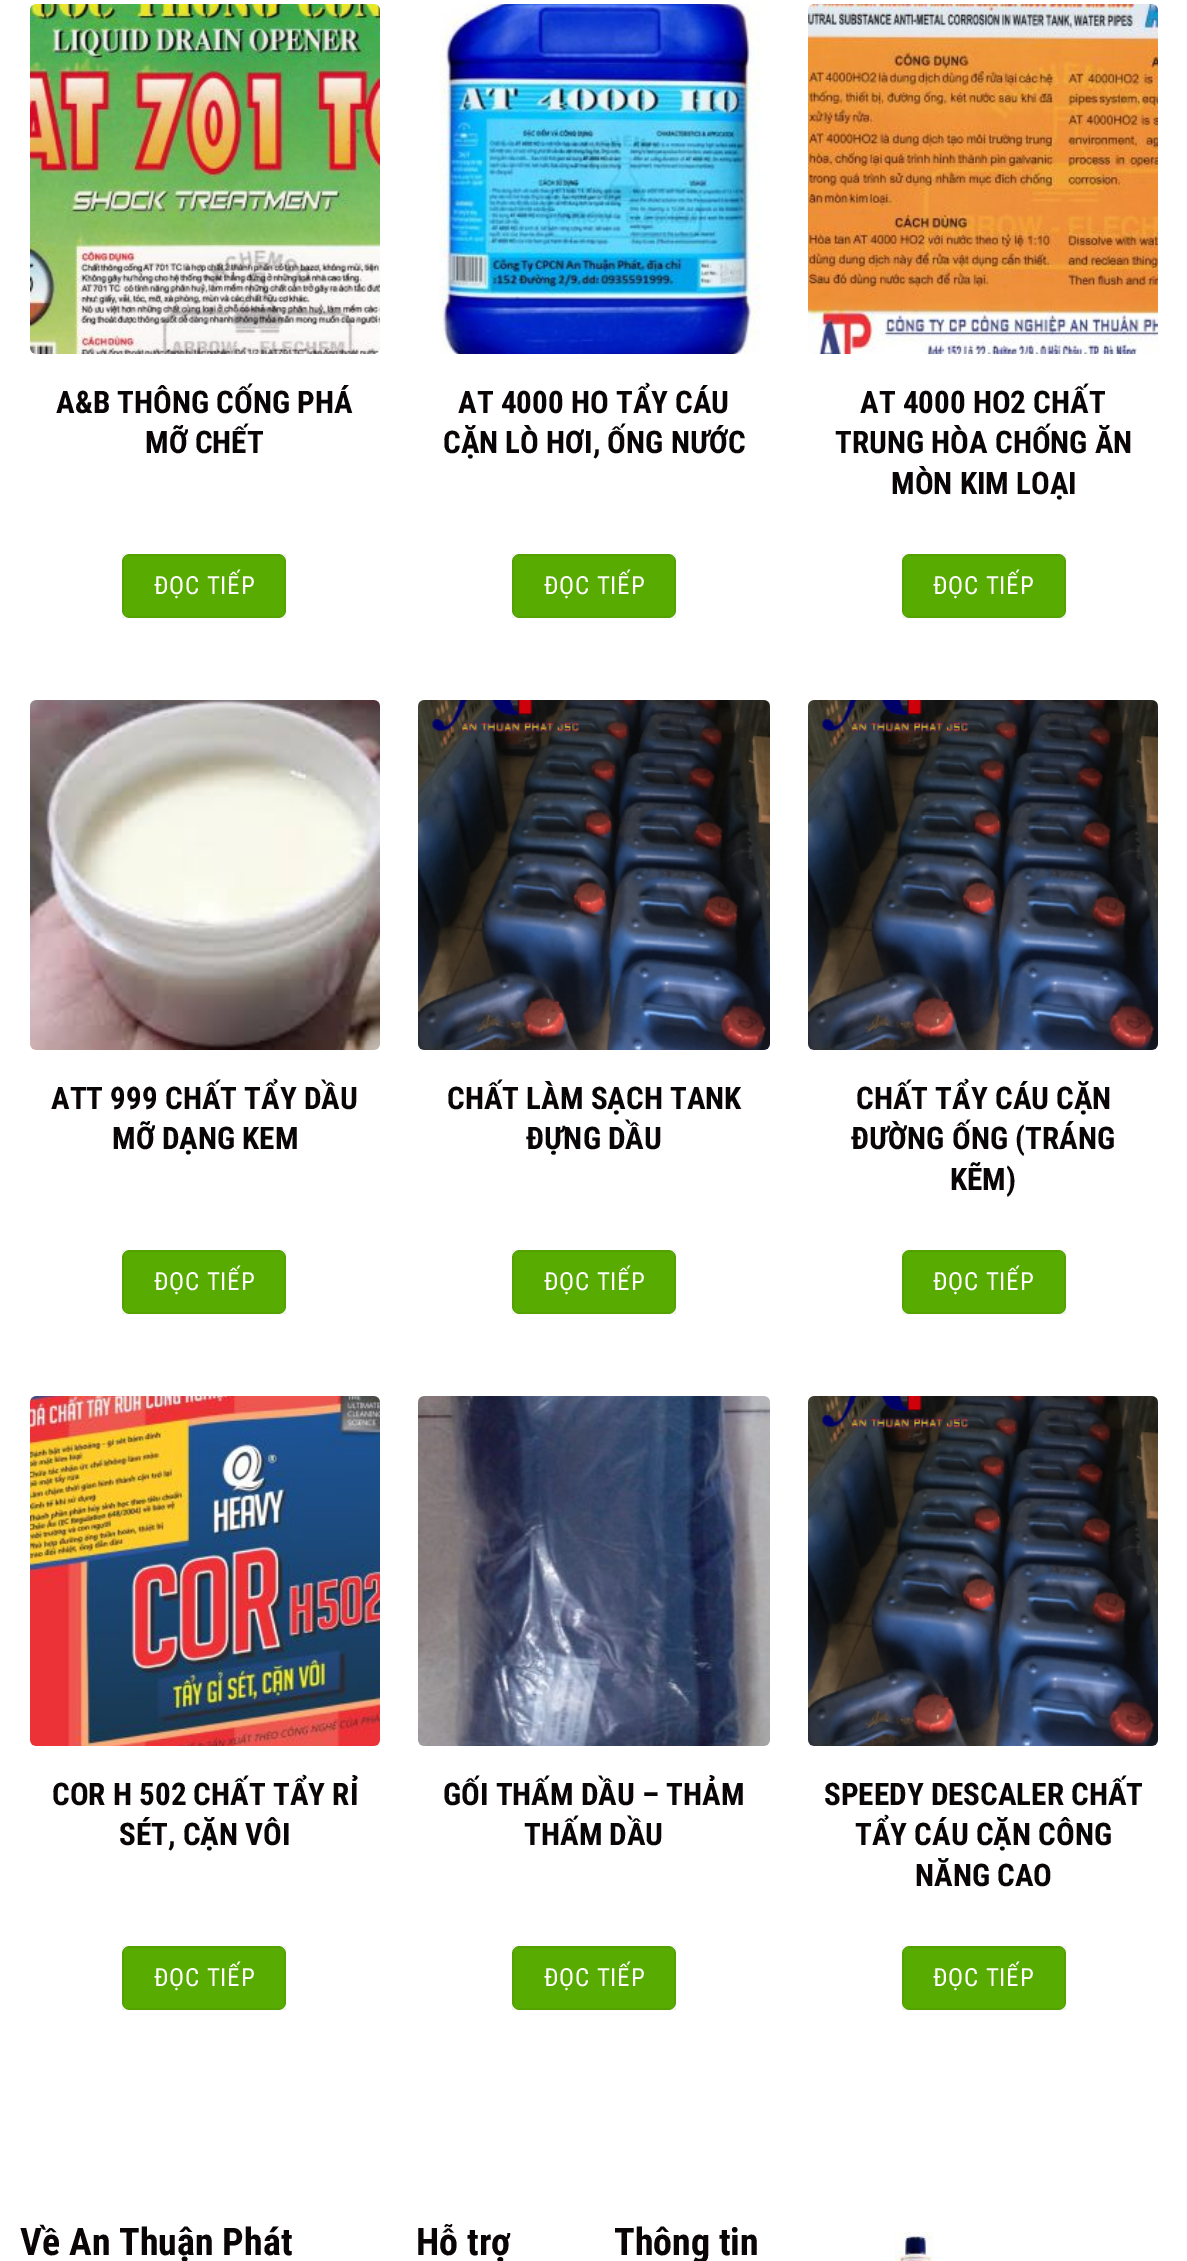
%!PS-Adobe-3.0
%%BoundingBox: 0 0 1187 2261
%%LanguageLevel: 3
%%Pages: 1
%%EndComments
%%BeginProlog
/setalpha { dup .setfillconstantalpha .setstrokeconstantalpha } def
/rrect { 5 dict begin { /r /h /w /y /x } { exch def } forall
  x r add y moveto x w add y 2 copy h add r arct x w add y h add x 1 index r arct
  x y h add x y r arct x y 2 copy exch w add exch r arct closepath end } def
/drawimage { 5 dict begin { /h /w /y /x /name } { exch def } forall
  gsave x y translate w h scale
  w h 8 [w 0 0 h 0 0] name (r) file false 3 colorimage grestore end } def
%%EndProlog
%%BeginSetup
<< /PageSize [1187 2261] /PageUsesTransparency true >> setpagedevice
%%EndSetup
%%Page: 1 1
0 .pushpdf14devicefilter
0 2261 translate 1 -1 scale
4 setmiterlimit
1 setgray
0 0 1187 2261 rectfill
(images/1.raw) 30 4 350 350 drawimage
0.345 0.671 0 setrgbcolor
122 554 164 64 8 rrect fill
0.05 setalpha
0 setgray
2 setlinewidth
123 555 162 62 rectstroke
1 setalpha
(images/2.raw) 439 4 322 350 drawimage
0.345 0.671 0 setrgbcolor
512 554 164 64 8 rrect fill
0.05 setalpha
0 setgray
513 555 162 62 rectstroke
1 setalpha
(images/3.raw) 808 4 350 350 drawimage
0.345 0.671 0 setrgbcolor
902 554 164 64 8 rrect fill
0.05 setalpha
0 setgray
903 555 162 62 rectstroke
1 setalpha
(images/4.raw) 30 700 350 350 drawimage
0.345 0.671 0 setrgbcolor
122 1250 164 64 8 rrect fill
0.05 setalpha
0 setgray
123 1251 162 62 rectstroke
1 setalpha
(images/5.raw) 418 700 352 350 drawimage
0.345 0.671 0 setrgbcolor
512 1250 164 64 8 rrect fill
0.05 setalpha
0 setgray
513 1251 162 62 rectstroke
1 setalpha
(images/6.raw) 808 700 350 350 drawimage
0.345 0.671 0 setrgbcolor
902 1250 164 64 8 rrect fill
0.05 setalpha
0 setgray
903 1251 162 62 rectstroke
1 setalpha
(images/7.raw) 30 1396 350 350 drawimage
0.345 0.671 0 setrgbcolor
122 1946 164 64 8 rrect fill
0.05 setalpha
0 setgray
123 1947 162 62 rectstroke
1 setalpha
(images/8.raw) 418 1396 352 350 drawimage
0.345 0.671 0 setrgbcolor
512 1946 164 64 8 rrect fill
0.05 setalpha
0 setgray
513 1947 162 62 rectstroke
1 setalpha
(images/6.raw) 808 1396 350 350 drawimage
0.345 0.671 0 setrgbcolor
902 1946 164 64 8 rrect fill
0.05 setalpha
0 setgray
903 1947 162 62 rectstroke
1 setalpha
(images/9.raw) 894 2232 40 29 drawimage
/RobotoCondensed-Bold [31.1 0 0 -31.1 0 0] selectfont
0.039 0.02 0.024 setrgbcolor
56 413 moveto (A&B THÔNG CỐNG PHÁ) show
145 453 moveto (MỠ CHẾT) show
/RobotoCondensed-Regular [25 0 0 -25 0 0] selectfont
1 setgray
154 594 moveto 0.75 0 (ĐỌC TIẾP) ashow
/RobotoCondensed-Bold [31.1 0 0 -31.1 0 0] selectfont
0.039 0.02 0.024 setrgbcolor
458 413 moveto (AT 4000 HO TẨY CÁU) show
443 453 moveto (CẶN LÒ HƠI, ỐNG NƯỚC) show
/RobotoCondensed-Regular [25 0 0 -25 0 0] selectfont
1 setgray
544 594 moveto 0.75 0 (ĐỌC TIẾP) ashow
/RobotoCondensed-Bold [31.1 0 0 -31.1 0 0] selectfont
0.039 0.02 0.024 setrgbcolor
860 413 moveto (AT 4000 HO2 CHẤT) show
835 453 moveto (TRUNG HÒA CHỐNG ĂN) show
891 494 moveto (MÒN KIM LOẠI) show
/RobotoCondensed-Regular [25 0 0 -25 0 0] selectfont
1 setgray
933 594 moveto 0.75 0 (ĐỌC TIẾP) ashow
/RobotoCondensed-Bold [31.1 0 0 -31.1 0 0] selectfont
0.039 0.02 0.024 setrgbcolor
51 1109 moveto (ATT 999 CHẤT TẨY DẦU) show
112 1149 moveto (MỠ DẠNG KEM) show
/RobotoCondensed-Regular [25 0 0 -25 0 0] selectfont
1 setgray
154 1290 moveto 0.75 0 (ĐỌC TIẾP) ashow
/RobotoCondensed-Bold [31.1 0 0 -31.1 0 0] selectfont
0.039 0.02 0.024 setrgbcolor
447 1109 moveto (CHẤT LÀM SẠCH TANK) show
526 1149 moveto (ĐỰNG DẦU) show
/RobotoCondensed-Regular [25 0 0 -25 0 0] selectfont
1 setgray
544 1290 moveto 0.75 0 (ĐỌC TIẾP) ashow
/RobotoCondensed-Bold [31.1 0 0 -31.1 0 0] selectfont
0.039 0.02 0.024 setrgbcolor
856 1109 moveto (CHẤT TẨY CÁU CẶN) show
851 1149 moveto (ĐƯỜNG ỐNG \(TRÁNG) show
950 1190 moveto (KẼM\)) show
/RobotoCondensed-Regular [25 0 0 -25 0 0] selectfont
1 setgray
933 1290 moveto 0.75 0 (ĐỌC TIẾP) ashow
/RobotoCondensed-Bold [31.1 0 0 -31.1 0 0] selectfont
0.039 0.02 0.024 setrgbcolor
52 1805 moveto (COR H 502 CHẤT TẨY RỈ) show
119 1845 moveto (SÉT, CẶN VÔI) show
/RobotoCondensed-Regular [25 0 0 -25 0 0] selectfont
1 setgray
154 1986 moveto 0.75 0 (ĐỌC TIẾP) ashow
/RobotoCondensed-Bold [31.1 0 0 -31.1 0 0] selectfont
0.039 0.02 0.024 setrgbcolor
443 1805 moveto (GỐI THẤM DẦU – THẢM) show
524 1845 moveto (THẤM DẦU) show
/RobotoCondensed-Regular [25 0 0 -25 0 0] selectfont
1 setgray
544 1986 moveto 0.75 0 (ĐỌC TIẾP) ashow
/RobotoCondensed-Bold [31.1 0 0 -31.1 0 0] selectfont
0.039 0.02 0.024 setrgbcolor
824 1805 moveto (SPEEDY DESCALER CHẤT) show
855 1845 moveto (TẨY CÁU CẶN CÔNG) show
915 1886 moveto (NĂNG CAO) show
/RobotoCondensed-Regular [25 0 0 -25 0 0] selectfont
1 setgray
933 1986 moveto 0.75 0 (ĐỌC TIẾP) ashow
/RobotoCondensed-Bold [38 0 0 -38 0 0] selectfont
0.039 0.02 0.024 setrgbcolor
20 2255 moveto (Về An Thuận Phát) show
416 2255 moveto (Hỗ trợ) show
614 2255 moveto (Thông tin) show
.poppdf14devicefilter showpage
%%EOF
